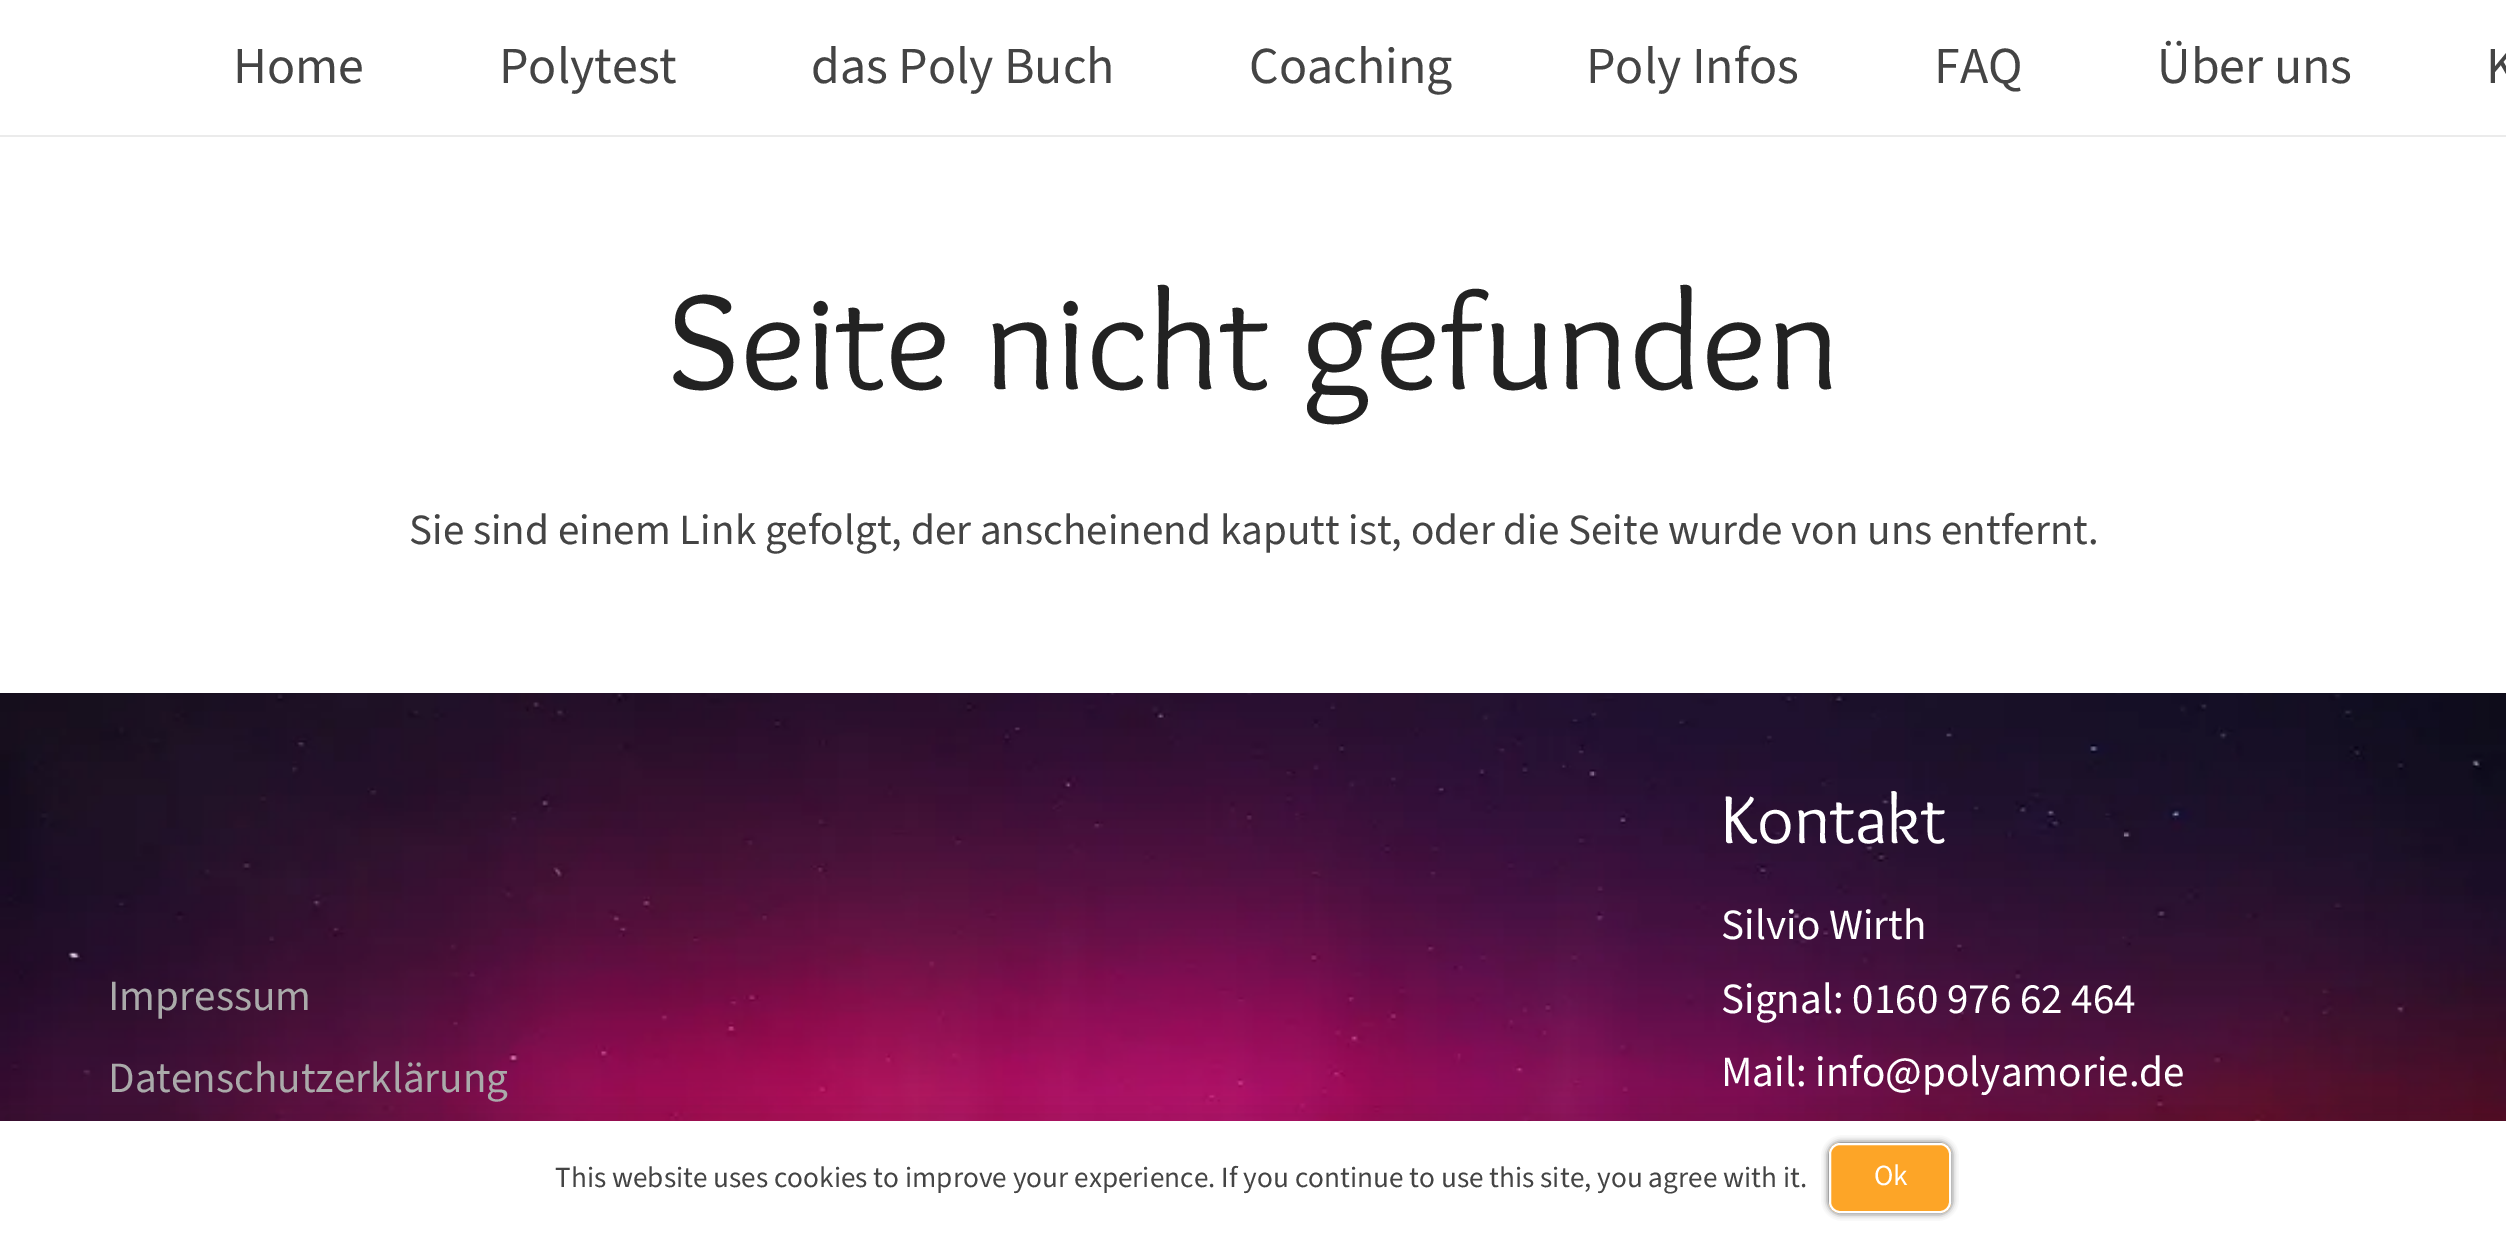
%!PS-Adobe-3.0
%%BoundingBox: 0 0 2506 1235
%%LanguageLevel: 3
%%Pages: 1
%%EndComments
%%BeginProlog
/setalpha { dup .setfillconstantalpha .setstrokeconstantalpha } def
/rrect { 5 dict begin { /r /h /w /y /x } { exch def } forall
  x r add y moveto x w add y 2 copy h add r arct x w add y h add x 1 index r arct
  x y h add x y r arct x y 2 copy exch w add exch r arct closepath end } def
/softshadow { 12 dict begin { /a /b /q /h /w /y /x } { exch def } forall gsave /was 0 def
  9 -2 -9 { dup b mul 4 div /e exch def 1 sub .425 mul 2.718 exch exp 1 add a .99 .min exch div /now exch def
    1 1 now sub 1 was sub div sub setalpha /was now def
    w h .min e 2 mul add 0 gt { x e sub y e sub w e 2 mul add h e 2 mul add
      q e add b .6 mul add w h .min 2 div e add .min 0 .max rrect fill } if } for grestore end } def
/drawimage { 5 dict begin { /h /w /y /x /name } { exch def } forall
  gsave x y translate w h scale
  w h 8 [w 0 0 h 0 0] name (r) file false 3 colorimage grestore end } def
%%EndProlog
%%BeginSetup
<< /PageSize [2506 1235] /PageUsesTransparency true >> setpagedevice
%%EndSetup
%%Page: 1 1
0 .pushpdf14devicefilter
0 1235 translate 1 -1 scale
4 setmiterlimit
1 setgray
0 0 2506 1235 rectfill
0.922 setgray
newpath 0 135 moveto 0 137 lineto 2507 137 lineto 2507 2 lineto 2506 2 lineto 2506 135 lineto closepath fill
(images/1.raw) 0 693 2506 428 drawimage
0 setgray
0 1109 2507 115 0 17 0.15 softshadow
1 setgray
0 1121 2506 114 rectfill
0.267 setgray
1829 1143 122 70 11 3.5 1 softshadow
0.992 0.647 0.153 setrgbcolor
1829 1143 122 70 11 rrect fill
1 setgray
2 setlinewidth
1830 1144 120 68 10 rrect stroke
/SourceSans3-Regular [52 0 0 -52 0 0] selectfont
0.267 setgray
233 83 moveto (Home) show
499 83 moveto (Polytest) show
811 83 moveto (das Poly Buch) show
1249 83 moveto (Coaching) show
1586 83 moveto (Poly Infos) show
1934 83 moveto (FAQ) show
2157 83 moveto (Über uns) show
2486 83 moveto (K) show
/Overlock-Regular [140.5 0 0 -140.5 0 0] selectfont
0.133 setgray
667 389 moveto (Seite nicht gefunden) show
/SourceSans3-Regular [43.2 0 0 -43.2 0 0] selectfont
0.267 setgray
409 544 moveto (Sie sind einem Link gefolgt, der anscheinend kaputt ist, oder die Seite wurde von uns entfernt.) show
0.667 setgray
108 1010 moveto (Impressum) show
108 1092 moveto (Datenschutzerklärung) show
/Overlock-Regular [70 0 0 -70 0 0] selectfont
1 setgray
1721 843 moveto (Kontakt) show
/SourceSans3-Regular [43.2 0 0 -43.2 0 0] selectfont
1721 939 moveto (Silvio Wirth) show
1721 1013 moveto (Signal: 0160 976 62 464) show
1721 1086 moveto (Mail: info@polyamorie.de) show
/SourceSans3-Regular [29.25 0 0 -29.25 0 0] selectfont
0.267 setgray
555 1187 moveto (This website uses cookies to improve your experience. If you continue to use this site, you agree with it.) show
1 setgray
1874 1185 moveto (Ok) show
.poppdf14devicefilter showpage
%%EOF
